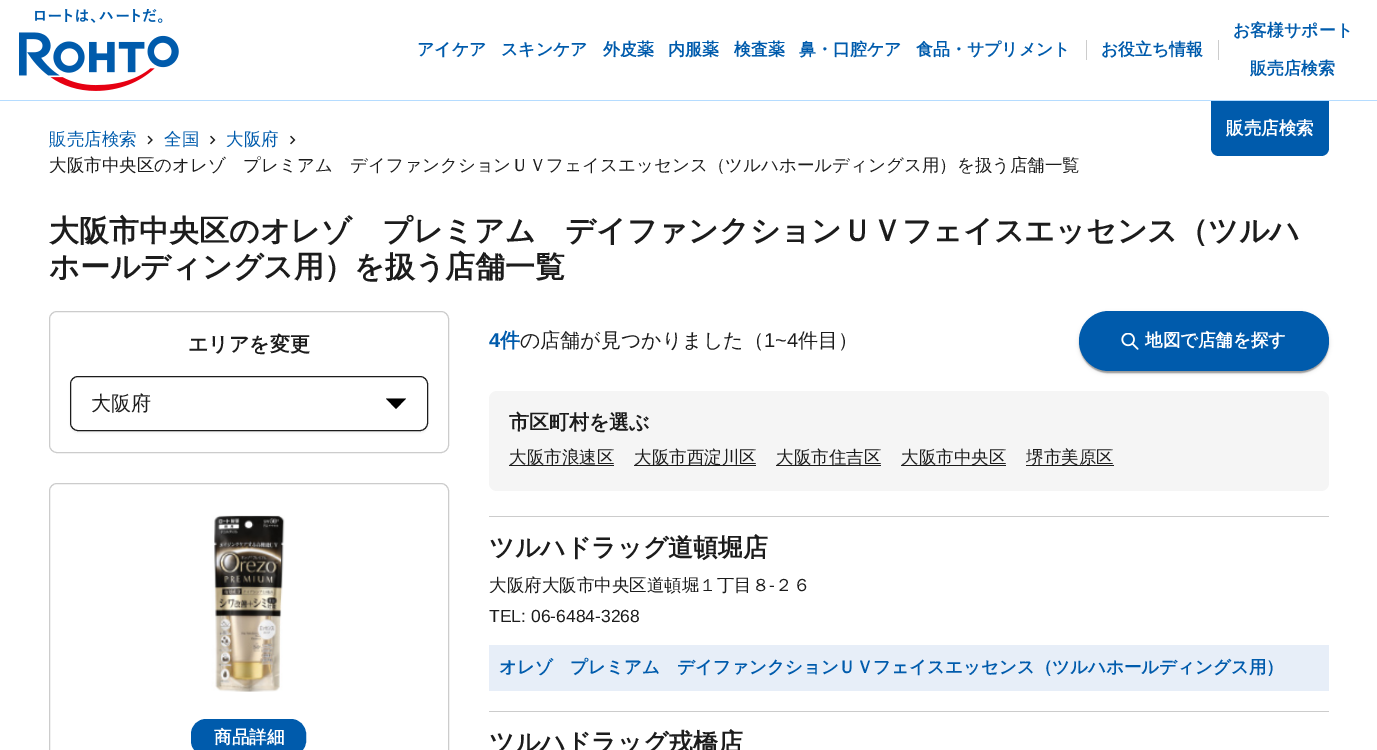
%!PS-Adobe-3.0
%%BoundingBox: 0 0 1377 750
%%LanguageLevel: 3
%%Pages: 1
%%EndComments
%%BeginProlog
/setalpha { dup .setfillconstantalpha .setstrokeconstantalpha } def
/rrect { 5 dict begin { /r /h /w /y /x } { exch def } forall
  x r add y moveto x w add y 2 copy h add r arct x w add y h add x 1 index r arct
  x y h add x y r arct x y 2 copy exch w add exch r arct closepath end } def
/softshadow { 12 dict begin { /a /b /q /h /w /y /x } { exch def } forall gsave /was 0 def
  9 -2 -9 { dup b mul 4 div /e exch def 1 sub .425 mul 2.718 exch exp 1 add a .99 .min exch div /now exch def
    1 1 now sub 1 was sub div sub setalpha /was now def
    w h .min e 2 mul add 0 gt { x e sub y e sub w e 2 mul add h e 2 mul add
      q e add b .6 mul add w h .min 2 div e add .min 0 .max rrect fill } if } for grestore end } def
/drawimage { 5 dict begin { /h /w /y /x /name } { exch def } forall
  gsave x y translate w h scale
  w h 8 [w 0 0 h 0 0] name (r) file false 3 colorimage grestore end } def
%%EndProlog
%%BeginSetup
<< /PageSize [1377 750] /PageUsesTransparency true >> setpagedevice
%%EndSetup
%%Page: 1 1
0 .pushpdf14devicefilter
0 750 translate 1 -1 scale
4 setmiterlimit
1 setgray
0 0 1377 750 rectfill
0.71 0.863 1 setrgbcolor
0 100 1377 1 rectfill
(images/1.raw) 19 9 160 82 drawimage
0.8 setgray
1086 40 1 20 rectfill
1218 40 1 20 rectfill
0 0.357 0.675 setrgbcolor
newpath 1211 101 moveto 1329 101 lineto 1329 148 lineto 1329 152.5 1325.5 156 1321 156 curveto 1219 156 lineto 1214.5 156 1211 152.5 1211 148 curveto closepath fill
(images/2.raw) 147 135 6 10 drawimage
(images/3.raw) 210 135 6 10 drawimage
(images/3.raw) 290 135 6 10 drawimage
0.8 setgray
49.5 311.5 399 141 7.5 rrect stroke
gsave
newpath 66 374 moveto 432 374 lineto 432 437 lineto 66 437 lineto closepath 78 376 moveto 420 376 lineto 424.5 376 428 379.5 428 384 curveto 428 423 lineto 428 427.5 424.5 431 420 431 curveto 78 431 lineto 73.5 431 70 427.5 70 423 curveto 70 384 lineto 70 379.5 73.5 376 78 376 curveto closepath eoclip newpath
0 setgray
70 378 358 55 8 1 0.05 softshadow
grestore
0.11 setgray
70.5 376.5 357 54 7.5 rrect stroke
0 setgray
newpath 396 409 moveto 386 398.5 lineto 406 398.5 lineto closepath fill
0.8 setgray
49.5 483.5 399 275 7.5 rrect stroke
(images/4.raw) 211 515 74 177 drawimage
0 0.357 0.675 setrgbcolor
192.5 720.5 112 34 13.5 rrect gsave fill grestore
3 setlinewidth
stroke
0 setgray
1079 313 250 60 30 2 0.12 softshadow
1079 313 250 60 30 0.5 0.14 softshadow
1080 315 248 58 29 0.5 0.2 softshadow
0 0.357 0.675 setrgbcolor
1079 311 250 60 30 rrect fill
(images/5.raw) 1121 333 18 17 drawimage
0.961 setgray
489 391 840 100 8 rrect fill
0.11 setgray
509 465 105 1 rectfill
634 465 122 1 rectfill
776 465 105 1 rectfill
901 465 105 1 rectfill
1026 465 88 1 rectfill
0.8 setgray
489 516 840 1 rectfill
489 711 840 1 rectfill
0.906 0.933 0.973 setrgbcolor
489 645 840 46 rectfill
/WenQuanYiZenHei-Bold [16.9 0 0 -16.9 0 0] selectfont
0 0.357 0.675 setrgbcolor
417 55 moveto (アイケア) show
501 55 moveto (スキンケア) show
603 55 moveto (外皮薬) show
668 55 moveto (内服薬) show
734 55 moveto (検査薬) show
799 55 moveto (鼻・口腔ケア) show
916 55 moveto (食品・サプリメント) show
1101 55 moveto (お役立ち情報) show
1233 36 moveto (お客様サポート) show
1250 74 moveto (販売店検索) show
/WenQuanYiZenHei-Bold [17.5 0 0 -17.5 0 0] selectfont
1 setgray
1226 134 moveto (販売店検索) show
/WenQuanYiZenHei-Medium [17.5 0 0 -17.5 0 0] selectfont
0 0.357 0.675 setrgbcolor
49 145 moveto (販売店検索) show
164 145 moveto (全国) show
226 145 moveto (大阪府) show
0.11 setgray
49 171 moveto (大阪市中央区のオレゾ　プレミアム　デイファンクションＵＶフェイスエッセンス（ツルハホールディングス用）を扱う店舗一覧) show
/WenQuanYiZenHei-Bold [30 0 0 -30 0 0] selectfont
49 241 moveto (大阪市中央区のオレゾ　プレミアム　デイファンクションＵＶフェイスエッセンス（ツルハ) show
49 277 moveto (ホールディングス用）を扱う店舗一覧) show
/WenQuanYiZenHei-Bold [20 0 0 -20 0 0] selectfont
188 351 moveto (エリアを変更) show
/WenQuanYiZenHei-Medium [20 0 0 -20 0 0] selectfont
91 410 moveto (大阪府) show
/WenQuanYiZenHei-Bold [17.5 0 0 -17.5 0 0] selectfont
1 setgray
214 743 moveto (商品詳細) show
/LiberationSans-Bold [20 0 0 -20 0 0] selectfont
0 0.357 0.675 setrgbcolor
489 347 moveto (4) show
/WenQuanYiZenHei-Bold [20 0 0 -20 0 0] selectfont
500 347 moveto (件) show
/WenQuanYiZenHei-Medium [20 0 0 -20 0 0] selectfont
0.11 setgray
520 347 moveto (の店舗が見つかりました（) show
/LiberationSans-Regular [20 0 0 -20 0 0] selectfont
764 347 moveto (1~4) show
/WenQuanYiZenHei-Medium [20 0 0 -20 0 0] selectfont
798 347 moveto (件目）) show
/WenQuanYiZenHei-Bold [17.5 0 0 -17.5 0 0] selectfont
1 setgray
1145 346 moveto (地図で店舗を探す) show
/WenQuanYiZenHei-Bold [20 0 0 -20 0 0] selectfont
0.11 setgray
509 429 moveto (市区町村を選ぶ) show
/WenQuanYiZenHei-Medium [17.5 0 0 -17.5 0 0] selectfont
509 463 moveto (大阪市浪速区) show
634 463 moveto (大阪市西淀川区) show
776 463 moveto (大阪市住吉区) show
901 463 moveto (大阪市中央区) show
1026 463 moveto (堺市美原区) show
/WenQuanYiZenHei-Bold [25 0 0 -25 0 0] selectfont
489 556 moveto (ツルハドラッグ道頓堀店) show
/WenQuanYiZenHei-Medium [17.5 0 0 -17.5 0 0] selectfont
489 591 moveto (大阪府大阪市中央区道頓堀１丁目８) show
/LiberationSans-Regular [17.5 0 0 -17.5 0 0] selectfont
769 591 moveto (-) show
/WenQuanYiZenHei-Medium [17.5 0 0 -17.5 0 0] selectfont
775 591 moveto (２６) show
/LiberationSans-Regular [17.5 0 0 -17.5 0 0] selectfont
489 622 moveto (TEL: 06-6484-3268) show
/WenQuanYiZenHei-Bold [17.5 0 0 -17.5 0 0] selectfont
0 0.357 0.675 setrgbcolor
499 673 moveto (オレゾ　プレミアム　デイファンクションＵＶフェイスエッセンス（ツルハホールディングス用）) show
/WenQuanYiZenHei-Bold [25 0 0 -25 0 0] selectfont
0.11 setgray
489 751 moveto (ツルハドラッグ戎橋店) show
.poppdf14devicefilter showpage
%%EOF
